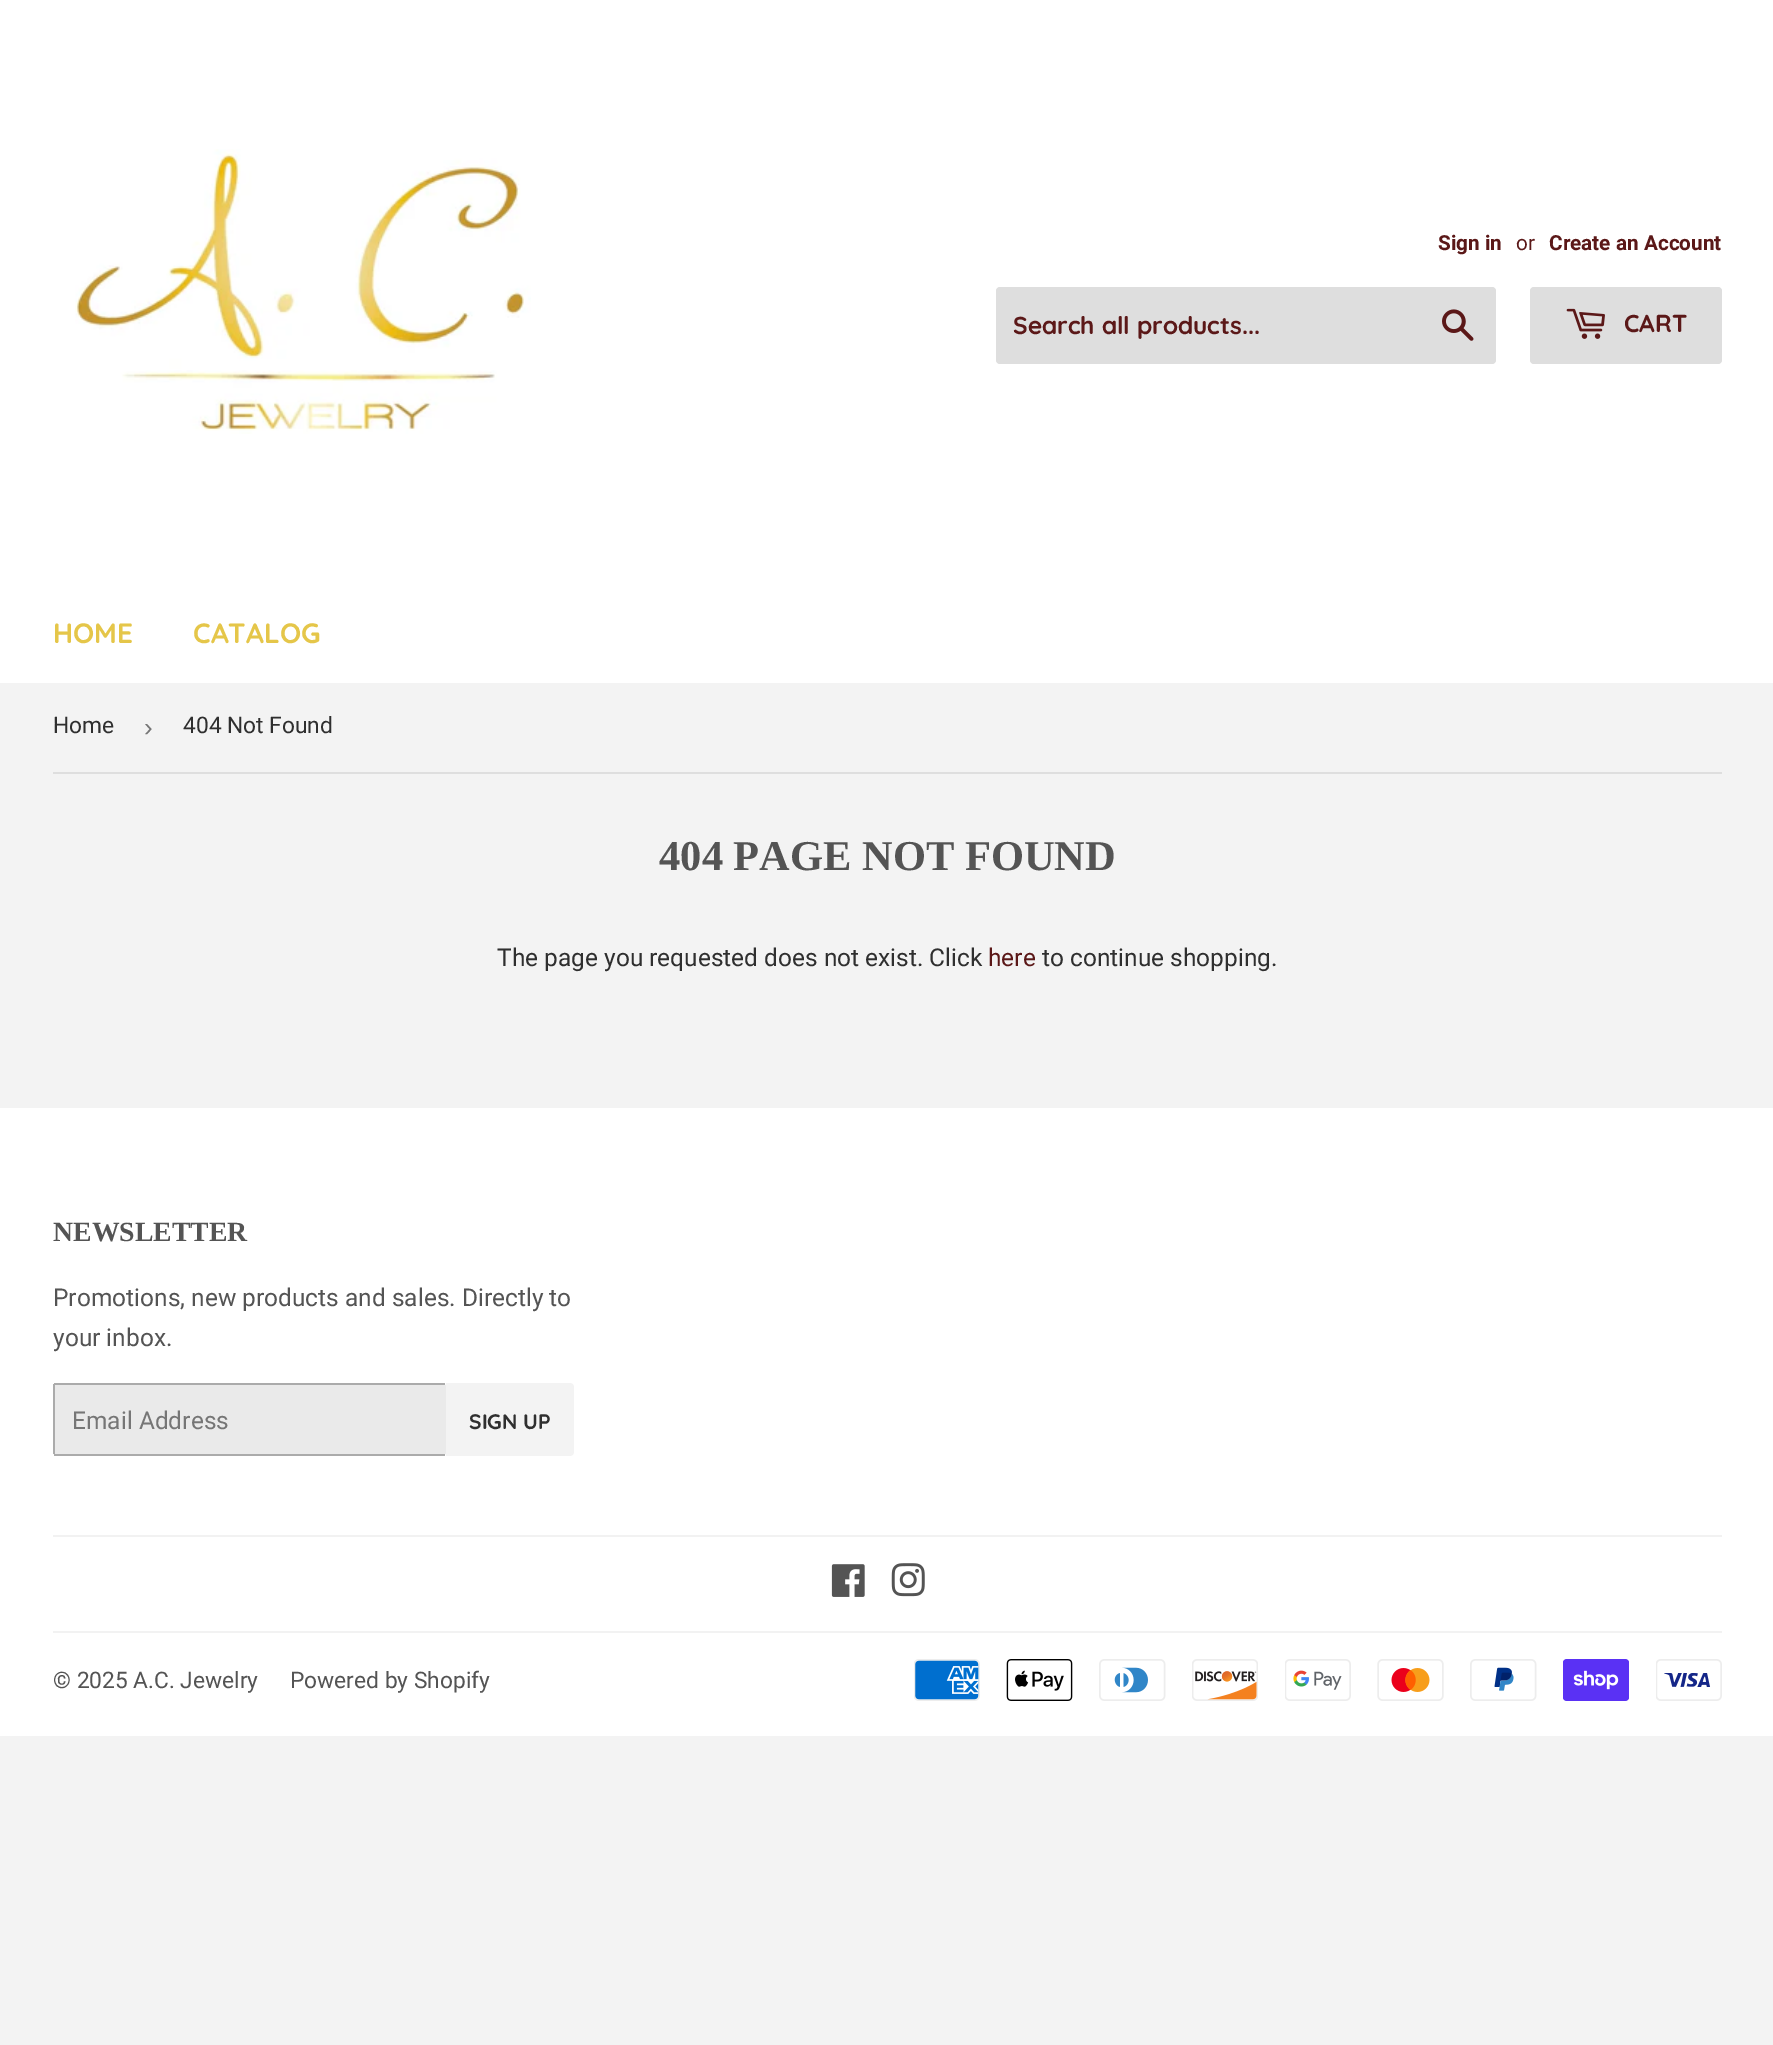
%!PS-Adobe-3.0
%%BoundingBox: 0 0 1773 2045
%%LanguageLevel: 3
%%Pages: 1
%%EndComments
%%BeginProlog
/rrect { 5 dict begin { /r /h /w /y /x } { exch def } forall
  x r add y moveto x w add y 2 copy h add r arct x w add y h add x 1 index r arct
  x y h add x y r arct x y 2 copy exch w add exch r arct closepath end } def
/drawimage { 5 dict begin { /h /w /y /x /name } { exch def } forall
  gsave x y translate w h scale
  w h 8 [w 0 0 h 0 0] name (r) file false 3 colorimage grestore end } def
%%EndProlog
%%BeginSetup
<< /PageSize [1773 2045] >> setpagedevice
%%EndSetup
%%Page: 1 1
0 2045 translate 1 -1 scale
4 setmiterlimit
0.953 setgray
0 0 1773 2045 rectfill
1 setgray
0 0 1773 683 rectfill
(images/1.raw) 75 149 456 285 drawimage
0.871 setgray
996 287 500 77 4 rrect fill
(images/2.raw) 1442 309 32 32 drawimage
1530 287 192 77 4 rrect fill
(images/3.raw) 1566 308 39 31 drawimage
53 772 1669 2 rectfill
1 setgray
0 1108 1773 628 rectfill
0.918 setgray
53 1383 393 73 4 rrect fill
0.671 setgray
54 1383 391 2 rectfill
54 1454 391 2 rectfill
53 1384 2 70 rectfill
0.953 setgray
newpath 446 1383 moveto 570 1383 lineto 572 1383 574 1385 574 1387 curveto 574 1452 lineto 574 1454 572 1456 570 1456 curveto 446 1456 lineto closepath fill
0.949 setgray
53 1535 1669 2 rectfill
(images/4.raw) 831 1564 34 33 drawimage
(images/5.raw) 891 1563 34 34 drawimage
53 1631 1669 2 rectfill
(images/6.raw) 914 1659 66 42 drawimage
(images/7.raw) 1006 1659 67 42 drawimage
(images/8.raw) 1099 1659 67 42 drawimage
(images/9.raw) 1192 1659 66 42 drawimage
(images/10.raw) 1285 1659 66 42 drawimage
(images/11.raw) 1377 1659 67 42 drawimage
(images/12.raw) 1470 1659 67 42 drawimage
(images/13.raw) 1563 1659 66 42 drawimage
(images/14.raw) 1656 1659 66 42 drawimage
/Roboto-Bold [20.75 0 0 -20.75 0 0] selectfont
0.357 0.094 0.094 setrgbcolor
1438 250 moveto (Sign in) show
/Roboto-Regular [20.75 0 0 -20.75 0 0] selectfont
1516 250 moveto (or) show
/Roboto-Bold [20.75 0 0 -20.75 0 0] selectfont
1549 250 moveto (Create an Account) show
/Quicksand-Bold [24.5 0 0 -24.5 0 0] selectfont
1013 334 moveto (Search all products...) show
1624 332 moveto (CART) show
/Quicksand-Bold [28 0 0 -28 0 0] selectfont
0.898 0.776 0.286 setrgbcolor
53 643 moveto (HOME) show
193 643 moveto (CATALOG) show
/Roboto-Regular [22.75 0 0 -22.75 0 0] selectfont
0.184 setgray
53 733 moveto (Home) show
/LiberationSans-Regular [26 0 0 -26 0 0] selectfont
0.463 setgray
144 736 moveto (›) show
/Roboto-Regular [22.75 0 0 -22.75 0 0] selectfont
0.184 setgray
183 733 moveto (404 Not Found) show
/LiberationSerif-Bold [42.5 0 0 -42.5 0 0] selectfont
0.329 setgray
659 870 moveto (404 PAGE NOT FOUND) show
/Roboto-Regular [24.5 0 0 -24.5 0 0] selectfont
0.184 setgray
497 966 moveto (The page you requested does not exist. Click) show
0.357 0.094 0.094 setrgbcolor
988 966 moveto (here) show
0.184 setgray
1042 966 moveto (to continue shopping.) show
/LiberationSerif-Bold [27.75 0 0 -27.75 0 0] selectfont
0.329 setgray
53 1241 moveto (NEWSLETTER) show
/Roboto-Regular [24.5 0 0 -24.5 0 0] selectfont
53 1306 moveto (Promotions, new products and sales. Directly to) show
53 1346 moveto (your inbox.) show
0.463 setgray
72 1429 moveto (Email Address) show
/Quicksand-Bold [21 0 0 -21 0 0] selectfont
0.184 setgray
469 1429 moveto (SIGN UP) show
/Roboto-Regular [22.75 0 0 -22.75 0 0] selectfont
0.329 setgray
53 1688 moveto (© 2025 A.C. Jewelry) show
290 1688 moveto (Powered by Shopify) show
showpage
%%EOF
